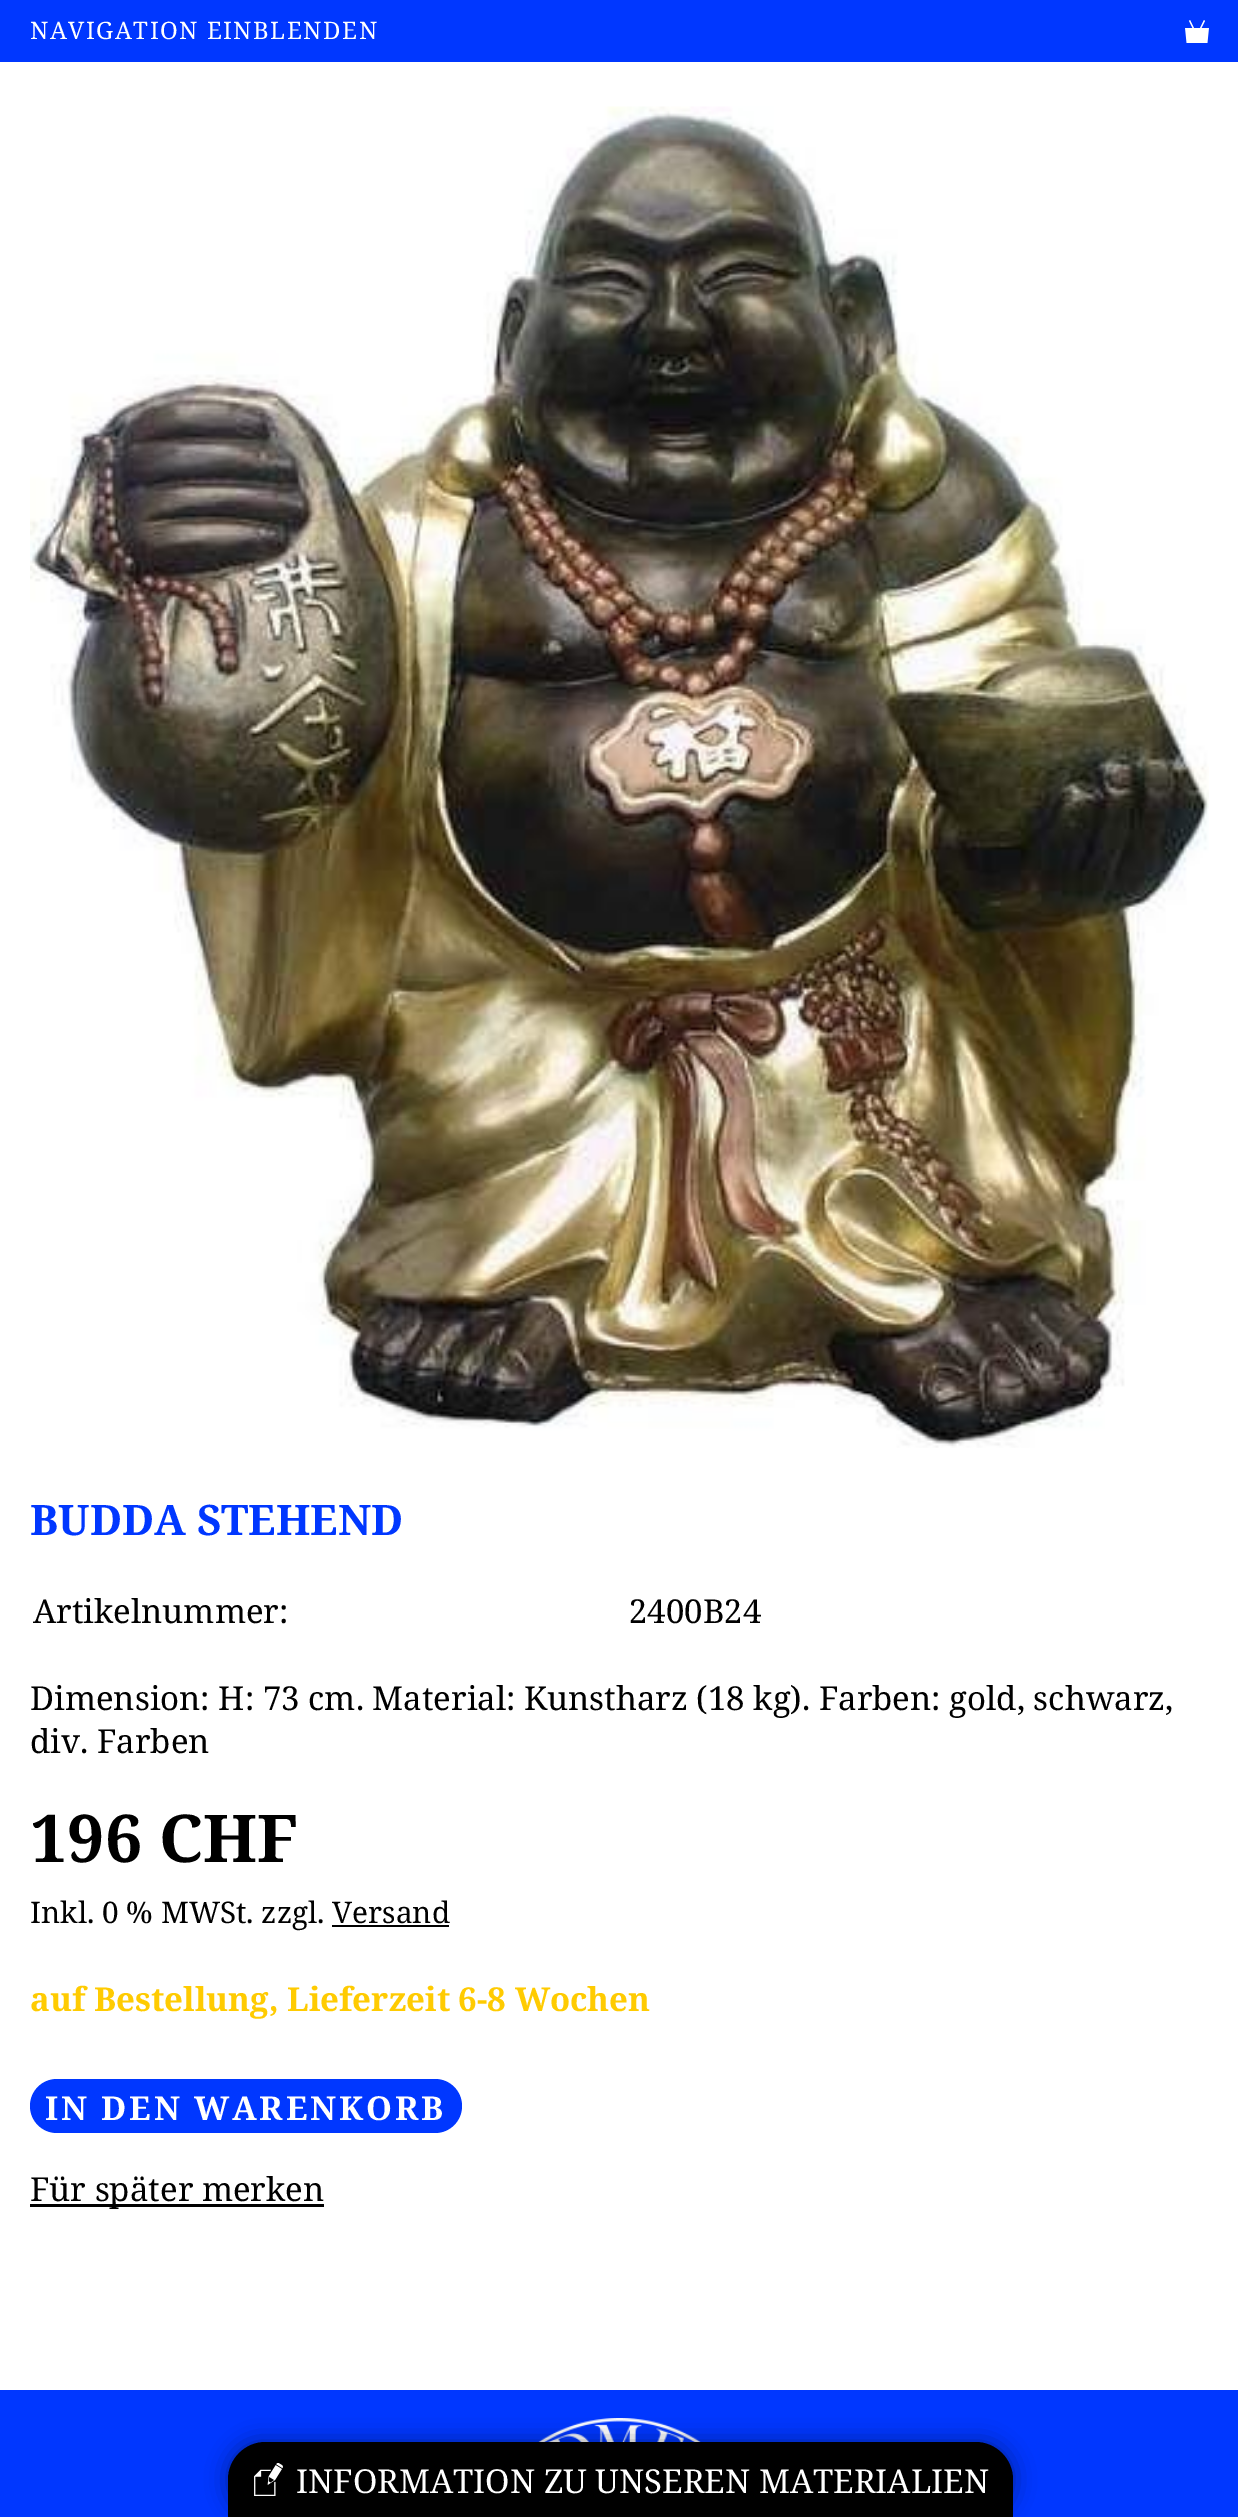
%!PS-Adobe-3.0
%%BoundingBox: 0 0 1238 2517
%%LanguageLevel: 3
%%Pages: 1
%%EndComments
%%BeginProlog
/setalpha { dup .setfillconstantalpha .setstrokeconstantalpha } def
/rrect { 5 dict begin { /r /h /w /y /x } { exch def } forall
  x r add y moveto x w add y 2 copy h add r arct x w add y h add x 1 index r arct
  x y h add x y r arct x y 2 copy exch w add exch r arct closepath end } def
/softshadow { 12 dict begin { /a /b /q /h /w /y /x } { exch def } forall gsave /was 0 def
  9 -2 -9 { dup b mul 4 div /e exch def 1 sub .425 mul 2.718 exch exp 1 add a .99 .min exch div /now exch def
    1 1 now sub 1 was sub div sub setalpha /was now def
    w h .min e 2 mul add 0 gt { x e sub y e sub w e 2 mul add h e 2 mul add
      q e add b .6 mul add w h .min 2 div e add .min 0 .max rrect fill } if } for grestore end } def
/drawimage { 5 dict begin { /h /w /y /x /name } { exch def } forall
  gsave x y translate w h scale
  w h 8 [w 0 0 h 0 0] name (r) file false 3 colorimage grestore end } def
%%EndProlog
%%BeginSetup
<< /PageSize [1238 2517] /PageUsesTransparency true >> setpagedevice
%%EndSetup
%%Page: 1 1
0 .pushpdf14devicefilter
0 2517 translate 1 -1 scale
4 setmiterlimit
1 setgray
0 0 1238 2517 rectfill
0 0.216 1 setrgbcolor
0 0 1238 62 rectfill
(images/1.raw) 1185 20 24 23 drawimage
(images/2.raw) 30 106 1179 1342 drawimage
0 setgray
332 1925 117 2 rectfill
0 0.216 1 setrgbcolor
30 2079 432 54 27 rrect fill
0 setgray
30 2204 294 3 rectfill
0 0.216 1 setrgbcolor
0 2390 1238 127 rectfill
(images/3.raw) 538 2418 163 24 drawimage
0 setgray
228 2442 785 75 37.5 11 0.4 softshadow
newpath 265.5 2442 moveto 975.5 2442 lineto 996 2442 1013 2459 1013 2479.5 curveto 1013 2517 lineto 228 2517 lineto 228 2479.5 lineto 228 2459 245 2442 265.5 2442 curveto closepath fill
(images/4.raw) 254 2463 29 33 drawimage
/NotoSerif-Regular [24 0 0 -24 0 0] selectfont
1 setgray
30 39 moveto 1.5 0 (NAVIGATION EINBLENDEN) ashow
/NotoSerif-Bold [42 0 0 -42 0 0] selectfont
0 0.216 1 setrgbcolor
30 1535 moveto (BUDDA STEHEND) show
/NotoSerif-Regular [33 0 0 -33 0 0] selectfont
0 setgray
33 1623 moveto (Artikelnummer:) show
629 1623 moveto (2400B24) show
30 1710 moveto (Dimension: H: 73 cm. Material: Kunstharz \(18 kg\). Farben: gold, schwarz,) show
30 1753 moveto (div. Farben) show
/NotoSerif-Bold [66 0 0 -66 0 0] selectfont
30 1862 moveto (196 CHF) show
/NotoSerif-Regular [29.75 0 0 -29.75 0 0] selectfont
30 1923 moveto (Inkl. 0 % MWSt. zzgl. Versand) show
/NotoSerif-Bold [33 0 0 -33 0 0] selectfont
1 0.796 0.004 setrgbcolor
30 2011 moveto (auf Bestellung, Lieferzeit 6-8 Wochen) show
1 setgray
45 2120 moveto 2.8 0 (IN DEN WARENKORB) ashow
/NotoSerif-Regular [33 0 0 -33 0 0] selectfont
0 setgray
30 2201 moveto (Für später merken) show
1 setgray
296 2493 moveto (INFORMATION ZU UNSEREN MATERIALIEN) show
.poppdf14devicefilter showpage
%%EOF
